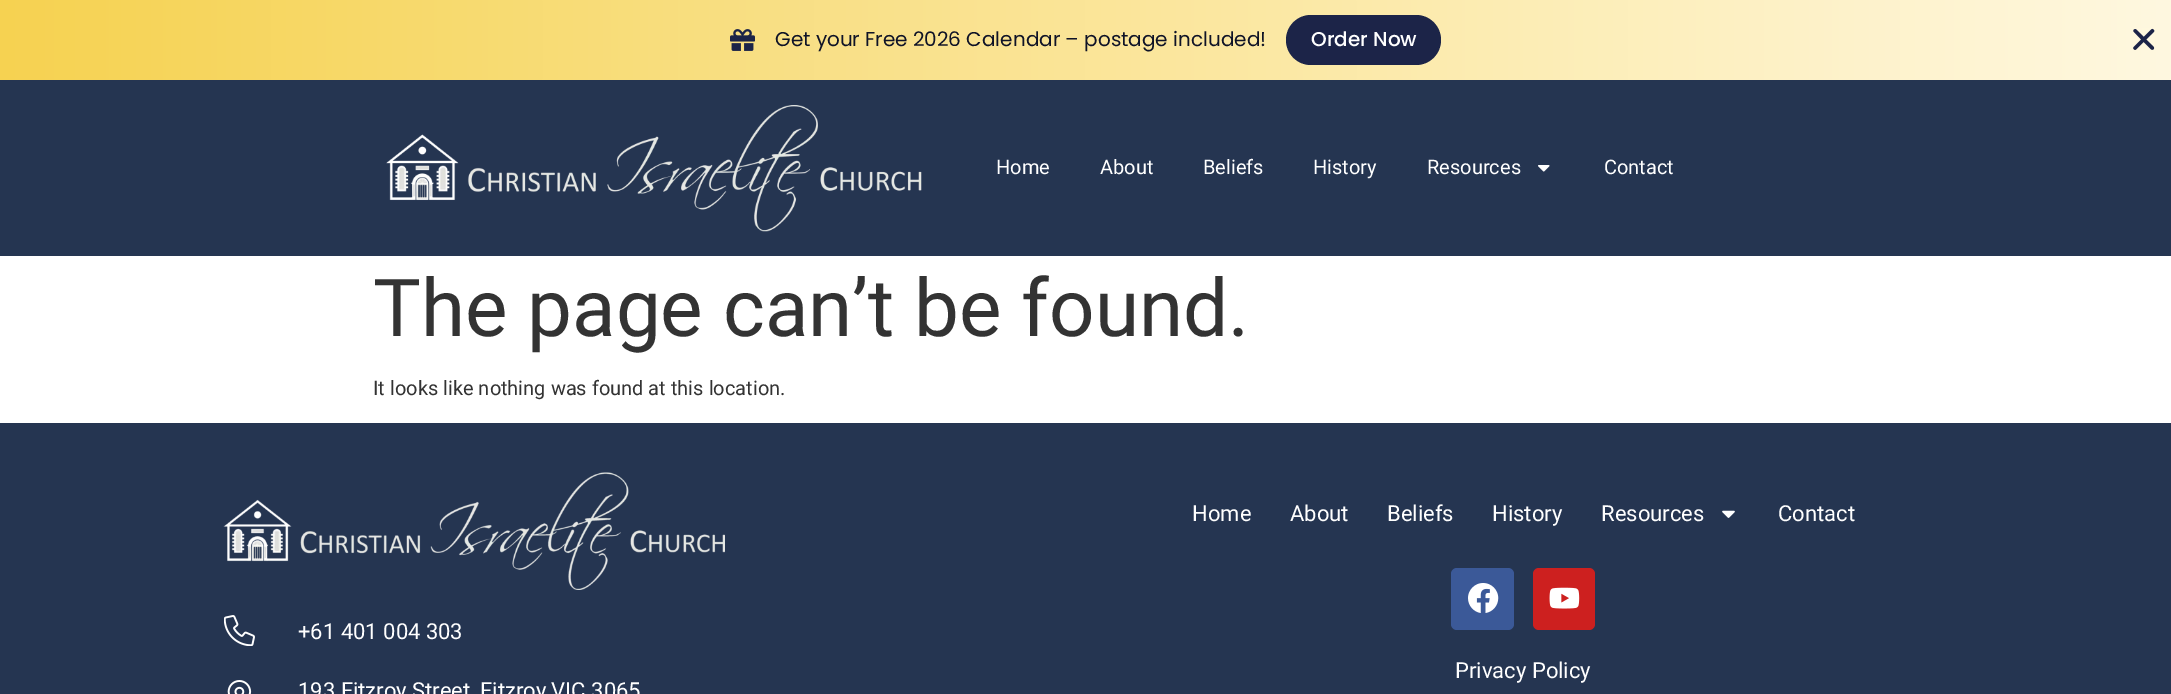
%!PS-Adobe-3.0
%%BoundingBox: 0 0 2171 694
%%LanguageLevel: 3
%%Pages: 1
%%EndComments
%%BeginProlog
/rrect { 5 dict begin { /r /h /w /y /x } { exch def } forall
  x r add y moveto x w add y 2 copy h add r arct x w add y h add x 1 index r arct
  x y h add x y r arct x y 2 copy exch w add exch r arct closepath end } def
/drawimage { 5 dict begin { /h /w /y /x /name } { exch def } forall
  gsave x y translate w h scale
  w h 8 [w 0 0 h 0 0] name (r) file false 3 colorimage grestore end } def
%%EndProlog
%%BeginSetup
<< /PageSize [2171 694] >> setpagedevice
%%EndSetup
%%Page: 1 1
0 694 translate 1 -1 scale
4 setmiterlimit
1 setgray
0 0 2171 694 rectfill
gsave newpath 0 0 moveto 2171 0 lineto 2171 80 lineto 0 80 lineto closepath clip newpath
<< /ShadingType 2 /ColorSpace /DeviceRGB /Coords [0 40 2171 40] /Extend [true true] /Function << /FunctionType 2 /Domain [0 1] /C0 [0.965 0.824 0.318] /C1 [1 0.973 0.878] /N 1 >> >> shfill grestore
(images/1.raw) 730 29 25 22 drawimage
0.11 0.141 0.282 setrgbcolor
1286 15 155 50 25 rrect fill
(images/2.raw) 2133 28 22 22 drawimage
0.145 0.208 0.318 setrgbcolor
0 80 2171 176 rectfill
(images/3.raw) 386 105 536 127 drawimage
(images/4.raw) 1538 165 12 7 drawimage
0 423 2171 271 rectfill
(images/5.raw) 223 472 502 118 drawimage
(images/6.raw) 224 615 31 31 drawimage
(images/7.raw) 227 680 25 14 drawimage
(images/8.raw) 1722 510 13 8 drawimage
0.231 0.349 0.596 setrgbcolor
1451 568 63 62 6 rrect fill
(images/9.raw) 1468 583 31 30 drawimage
0.804 0.125 0.122 setrgbcolor
1533 568 62 62 6 rrect fill
(images/10.raw) 1549 587 31 22 drawimage
/Poppins-Regular [20 0 0 -20 0 0] selectfont
0.059 0.075 0.153 setrgbcolor
775 46 moveto (Get your Free 2026 Calendar – postage included!) show
/Poppins-Medium [20 0 0 -20 0 0] selectfont
1 setgray
1311 46 moveto (Order Now) show
/Roboto-Regular [20 0 0 -20 0 0] selectfont
996 174 moveto (Home) show
1100 174 moveto (About) show
1203 174 moveto (Beliefs) show
1313 174 moveto (History) show
1427 174 moveto (Resources) show
1604 174 moveto (Contact) show
/Roboto-Regular [80 0 0 -80 0 0] selectfont
0.2 setgray
373 336 moveto (The page can’t be found.) show
/Roboto-Regular [20 0 0 -20 0 0] selectfont
373 395 moveto (It looks like nothing was found at this location.) show
/Roboto-Regular [22 0 0 -22 0 0] selectfont
1 setgray
298 639 moveto (+61 401 004 303) show
298 698 moveto (193 Fitzroy Street) show
480 698 moveto (Fitzroy VIC 3065) show
1192 521 moveto (Home) show
1290 521 moveto (About) show
1387 521 moveto (Beliefs) show
1492 521 moveto (History) show
1601 521 moveto (Resources) show
1778 521 moveto (Contact) show
1455 678 moveto (Privacy Policy) show
showpage
%%EOF
